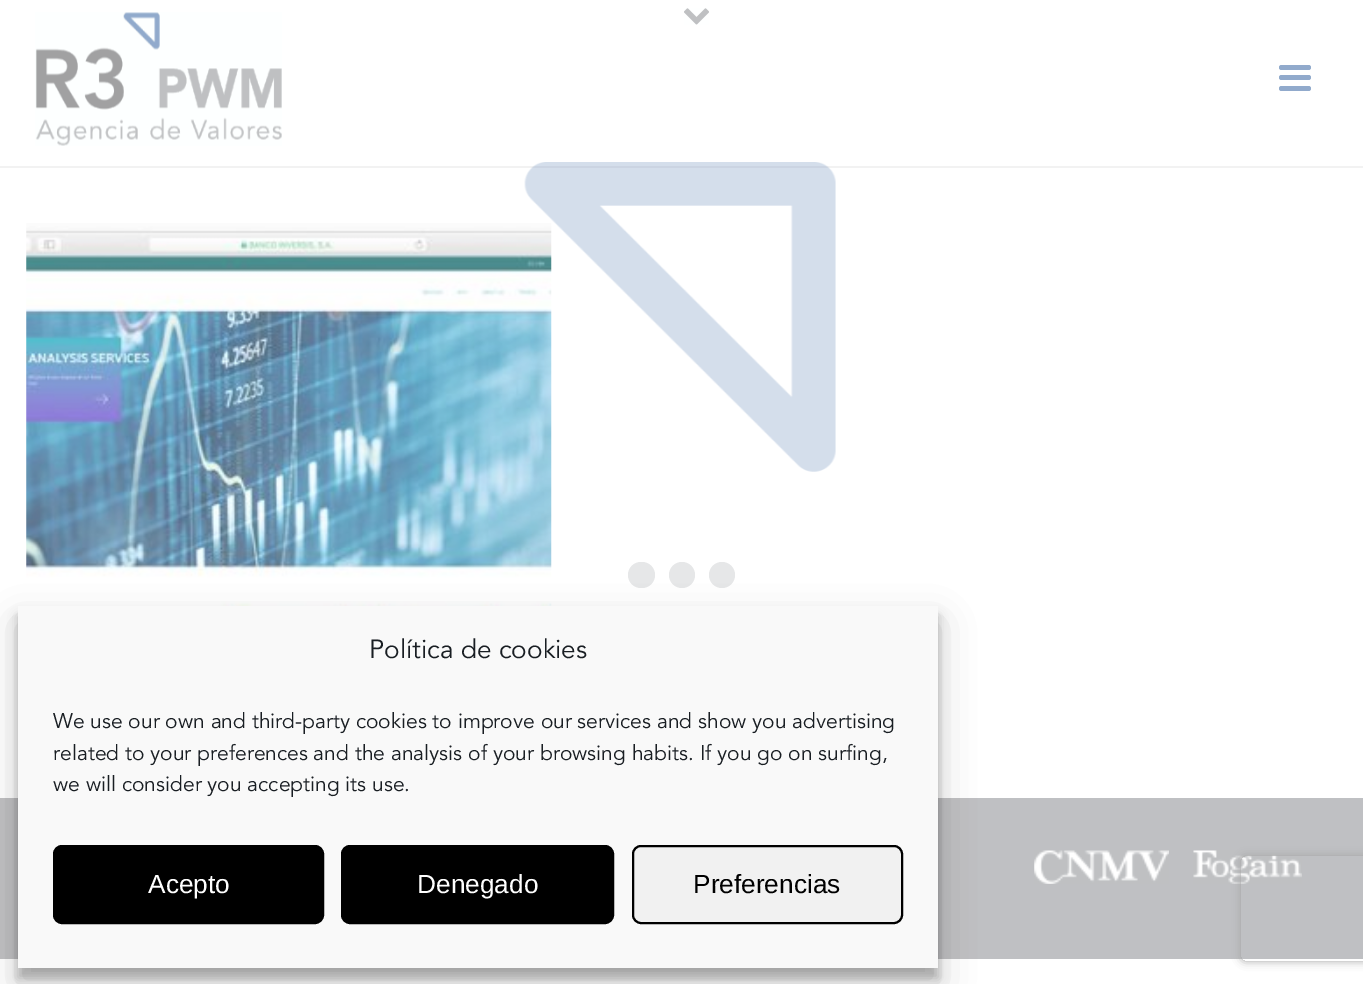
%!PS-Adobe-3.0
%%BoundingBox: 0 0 1363 984
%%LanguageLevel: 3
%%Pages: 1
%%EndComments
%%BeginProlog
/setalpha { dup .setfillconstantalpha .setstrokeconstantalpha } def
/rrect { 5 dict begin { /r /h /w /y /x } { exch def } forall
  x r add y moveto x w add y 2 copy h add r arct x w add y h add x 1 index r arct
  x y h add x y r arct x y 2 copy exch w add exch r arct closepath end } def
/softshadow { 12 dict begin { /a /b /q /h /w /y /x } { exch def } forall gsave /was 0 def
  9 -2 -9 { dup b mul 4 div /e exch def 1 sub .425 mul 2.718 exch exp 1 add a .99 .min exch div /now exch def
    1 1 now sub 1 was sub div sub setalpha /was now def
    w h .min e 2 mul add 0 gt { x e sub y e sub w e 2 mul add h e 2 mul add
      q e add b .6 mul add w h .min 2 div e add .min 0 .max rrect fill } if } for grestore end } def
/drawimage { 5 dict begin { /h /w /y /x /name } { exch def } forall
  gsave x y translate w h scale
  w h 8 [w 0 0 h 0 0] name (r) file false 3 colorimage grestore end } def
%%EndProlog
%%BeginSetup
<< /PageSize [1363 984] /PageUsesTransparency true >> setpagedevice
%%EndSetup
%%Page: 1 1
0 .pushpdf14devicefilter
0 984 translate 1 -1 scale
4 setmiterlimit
1 setgray
0 0 1363 984 rectfill
0.949 setgray
0 166 1363 2 rectfill
(images/1.raw) 684 8 25 17 drawimage
(images/2.raw) 35 12 247 134 drawimage
0.569 0.667 0.8 setrgbcolor
1279 65 32 5 2.5 rrect fill
1279 75 32 5 2.5 rrect fill
1279 86 32 5 2.5 rrect fill
(images/3.raw) 26 223 526 383 drawimage
0.749 0.753 0.765 setrgbcolor
0 798 1363 161 rectfill
(images/4.raw) 1034 850 135 34 drawimage
(images/5.raw) 1193 850 109 34 drawimage
(images/6.raw) 524 162 312 310 drawimage
0.902 0.906 0.91 setrgbcolor
628 562 27 26 13 rrect fill
newpath 682 575 13 0 360 arc closepath fill
newpath 722 575 13 0 360 arc closepath fill
0 setgray
18 616 920 362 0 5 0.23 softshadow
18 623 920 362 0 17.5 0.19 softshadow
0.976 setgray
18 606 920 362 rectfill
0 setgray
54 846 269 77 8 rrect gsave fill grestore
2 setlinewidth
stroke
342 846 271 77 8 rrect gsave fill grestore
stroke
0.945 setgray
633 846 269 77 8 rrect gsave fill grestore
0 setgray
stroke
gsave
newpath 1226 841 moveto 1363 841 lineto 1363 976 lineto 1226 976 lineto closepath 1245 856 moveto 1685 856 lineto 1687 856 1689 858 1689 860 curveto 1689 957 lineto 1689 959 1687 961 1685 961 curveto 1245 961 lineto 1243 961 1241 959 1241 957 curveto 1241 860 lineto 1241 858 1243 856 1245 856 curveto closepath eoclip newpath
0.643 setgray
1241 856 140 105 4 4.5 1 softshadow
grestore
/Avenir-Regular [26.25 0 0 -26.25 0 0] selectfont
0.098 0.118 0.137 setrgbcolor
369 658 moveto (Política de cookies) show
/Avenir-Regular [21 0 0 -21 0 0] selectfont
53 728 moveto (We use our own and third-party cookies to improve our services and show you advertising) show
53 760 moveto (related to your preferences and the analysis of your browsing habits. If you go on surfing,) show
53 791 moveto (we will consider you accepting its use.) show
/LiberationSans-Regular [26.25 0 0 -26.25 0 0] selectfont
1 setgray
148 893 moveto (Acepto) show
417 893 moveto (Denegado) show
0 setgray
693 893 moveto (Preferencias) show
.poppdf14devicefilter showpage
%%EOF
